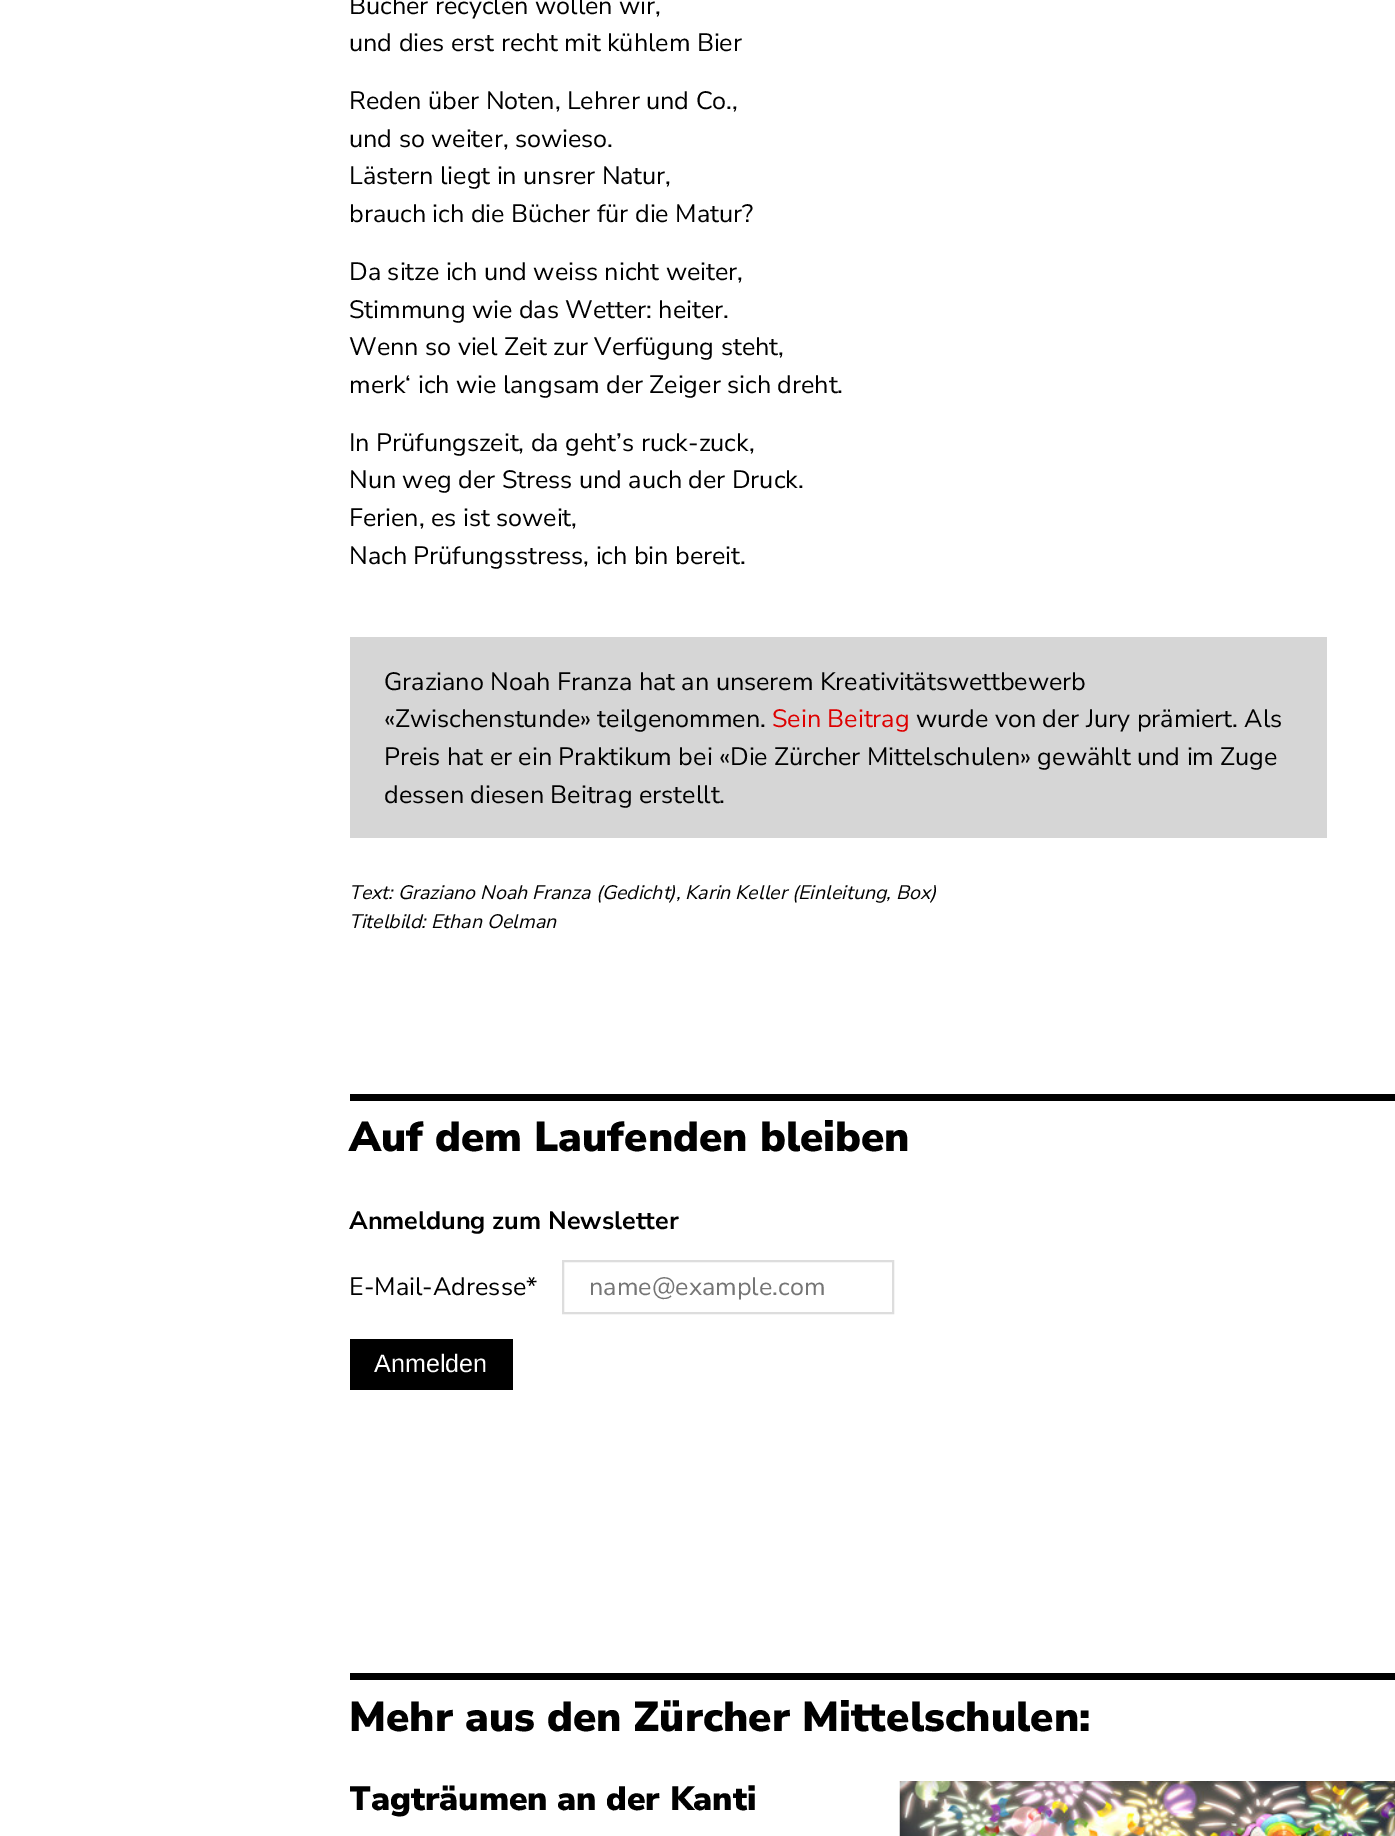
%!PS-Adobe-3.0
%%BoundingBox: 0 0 1395 1836
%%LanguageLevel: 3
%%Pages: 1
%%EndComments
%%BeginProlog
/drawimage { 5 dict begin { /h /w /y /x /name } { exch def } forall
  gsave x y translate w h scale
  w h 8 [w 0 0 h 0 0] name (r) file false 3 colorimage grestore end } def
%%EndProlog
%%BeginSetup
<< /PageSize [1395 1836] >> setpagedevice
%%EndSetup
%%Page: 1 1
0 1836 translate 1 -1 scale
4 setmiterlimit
1 setgray
0 0 1395 1836 rectfill
0.839 setgray
350 637 977 201 rectfill
0 setgray
350 1094 1045 7 rectfill
0.867 setgray
2 setlinewidth
563 1261 330 52 rectstroke
0 setgray
350 1339 163 51 rectfill
350 1673 1045 7 rectfill
(images/1.raw) 899 1781 496 55 drawimage
/NunitoSans-Regular [25.15 0 0 -25.15 0 0] selectfont
349 14 moveto (Bücher recyclen wollen wir,) show
349 51 moveto (und dies erst recht mit kühlem Bier) show
349 109 moveto (Reden über Noten, Lehrer und Co.,) show
349 147 moveto (und so weiter, sowieso.) show
349 184 moveto (Lästern liegt in unsrer Natur,) show
349 222 moveto (brauch ich die Bücher für die Matur?) show
349 280 moveto (Da sitze ich und weiss nicht weiter,) show
349 318 moveto (Stimmung wie das Wetter: heiter.) show
349 355 moveto (Wenn so viel Zeit zur Verfügung steht,) show
349 393 moveto (merk‘ ich wie langsam der Zeiger sich dreht.) show
349 451 moveto (In Prüfungszeit, da geht’s ruck-zuck,) show
349 488 moveto (Nun weg der Stress und auch der Druck.) show
349 526 moveto (Ferien, es ist soweit,) show
349 564 moveto (Nach Prüfungsstress, ich bin bereit.) show
384 690 moveto (Graziano Noah Franza hat an unserem Kreativitätswettbewerb) show
384 727 moveto («Zwischenstunde» teilgenommen.) show
0.871 0 0 setrgbcolor
772 727 moveto (Sein Beitrag) show
0 setgray
916 727 moveto (wurde von der Jury prämiert. Als) show
384 765 moveto (Preis hat er ein Praktikum bei «Die Zürcher Mittelschulen» gewählt und im Zuge) show
384 803 moveto (dessen diesen Beitrag erstellt.) show
/NunitoSans-Italic [19.55 0 0 -19.55 0 0] selectfont
349 899 moveto (Text: Graziano Noah Franza \(Gedicht\), Karin Keller \(Einleitung, Box\)) show
349 928 moveto (Titelbild: Ethan Oelman) show
/NunitoSans-Black [41.9 0 0 -41.9 0 0] selectfont
349 1151 moveto (Auf dem Laufenden bleiben) show
/NunitoSans-Bold [25.15 0 0 -25.15 0 0] selectfont
349 1229 moveto (Anmeldung zum Newsletter) show
/NunitoSans-Regular [25.15 0 0 -25.15 0 0] selectfont
349 1295 moveto (E-Mail-Adresse*) show
0.459 setgray
589 1295 moveto (name@example.com) show
/LiberationSans-Regular [25.15 0 0 -25.15 0 0] selectfont
1 setgray
374 1372 moveto (Anmelden) show
/NunitoSans-Black [41.9 0 0 -41.9 0 0] selectfont
0 setgray
349 1731 moveto (Mehr aus den Zürcher Mittelschulen:) show
gsave
350 1782 497 50 rectclip
/NunitoSans-Black [33.5 0 0 -33.5 0 0] selectfont
349 1810 moveto (Tagträumen an der Kanti) show
grestore
showpage
%%EOF
